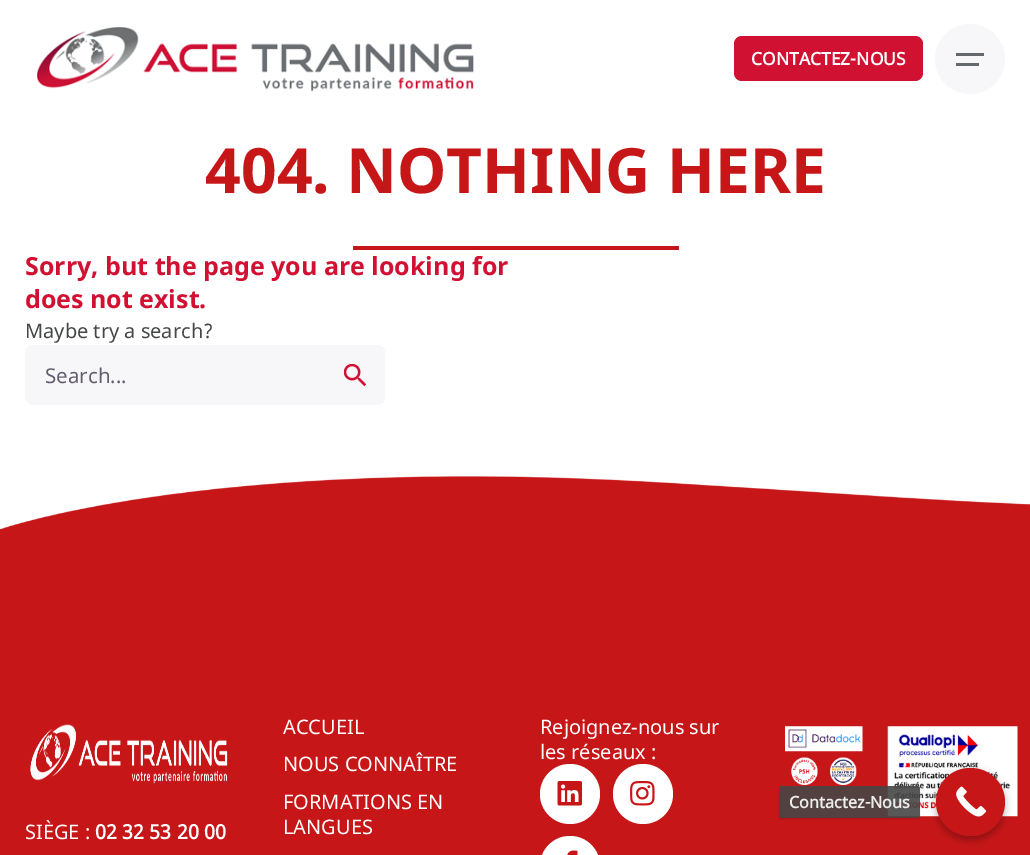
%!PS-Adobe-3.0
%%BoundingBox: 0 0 1030 855
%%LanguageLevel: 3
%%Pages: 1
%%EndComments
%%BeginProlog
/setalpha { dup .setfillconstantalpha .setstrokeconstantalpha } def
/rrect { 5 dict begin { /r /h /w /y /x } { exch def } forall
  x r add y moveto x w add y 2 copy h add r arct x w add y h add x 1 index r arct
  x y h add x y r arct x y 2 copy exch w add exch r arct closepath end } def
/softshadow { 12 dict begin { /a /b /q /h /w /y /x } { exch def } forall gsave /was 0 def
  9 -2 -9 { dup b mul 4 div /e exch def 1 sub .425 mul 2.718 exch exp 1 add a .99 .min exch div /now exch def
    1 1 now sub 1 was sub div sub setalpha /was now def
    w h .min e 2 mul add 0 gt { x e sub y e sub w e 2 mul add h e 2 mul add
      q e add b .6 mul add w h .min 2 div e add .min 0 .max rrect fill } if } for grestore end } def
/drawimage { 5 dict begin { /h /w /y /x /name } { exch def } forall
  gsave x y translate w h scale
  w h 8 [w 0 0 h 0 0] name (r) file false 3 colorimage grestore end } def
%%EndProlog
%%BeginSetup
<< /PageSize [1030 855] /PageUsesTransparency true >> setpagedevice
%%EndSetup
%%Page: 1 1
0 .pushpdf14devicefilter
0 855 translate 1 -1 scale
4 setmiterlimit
1 setgray
0 0 1030 855 rectfill
(images/1.raw) 37 27 437 65 drawimage
0.82 0.067 0.196 setrgbcolor
734 36 189 45 8 rrect fill
0.969 0.965 0.973 setrgbcolor
newpath 970 59 35 0 360 arc closepath fill
0.388 0.408 0.427 setrgbcolor
956 53 28 3 rectfill
956 63 23 3 rectfill
0.78 0.086 0.094 setrgbcolor
353 246 326 4 rectfill
0.969 0.965 0.973 setrgbcolor
25 345 360 60 8 rrect fill
(images/2.raw) 344 364 22 22 drawimage
0.78 0.086 0.094 setrgbcolor
0 641 1030 214 rectfill
(images/3.raw) 0 476 1030 165 drawimage
1 setgray
newpath 570 794 30 0 360 arc closepath fill
(images/4.raw) 557 781 25 25 drawimage
newpath 643 794 30 0 360 arc closepath fill
(images/5.raw) 630 781 25 25 drawimage
540 836 60 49 30 rrect fill
(images/6.raw) 567 850 11 5 drawimage
(images/7.raw) 785 726 78 26 drawimage
(images/8.raw) 791 757 27 28 drawimage
(images/9.raw) 830 757 27 28 drawimage
(images/10.raw) 887 726 131 91 drawimage
(images/11.raw) 30 724 198 60 drawimage
0 setgray
936 771 69 69 34.5 4 0.3 softshadow
0.78 0.086 0.094 setrgbcolor
936 768 69 68 34 rrect fill
(images/12.raw) 956 786 31 31 drawimage
gsave
newpath 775 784 moveto 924 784 lineto 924 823 lineto 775 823 lineto closepath 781.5 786 moveto 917.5 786 lineto 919 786 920 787 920 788.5 curveto 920 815.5 lineto 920 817 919 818 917.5 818 curveto 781.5 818 lineto 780 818 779 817 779 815.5 curveto 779 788.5 lineto 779 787 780 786 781.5 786 curveto closepath eoclip newpath
0 setgray
779 788 141 31 2.5 1 0.15 softshadow
grestore
0.9 setalpha
0.275 setgray
779 786 141 32 2.5 rrect fill
/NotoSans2-Bold [17.5 0 0 -17.5 0 0] selectfont
1 setalpha
1 setgray
751 65 moveto (CONTACTEZ-NOUS) show
/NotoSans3-Bold [62.5 0 0 -62.5 0 0] selectfont
0.78 0.086 0.094 setrgbcolor
205 193 moveto (404. NOTHING HERE) show
/NotoSans-Bold [25 0 0 -25 0 0] selectfont
0.82 0.067 0.196 setrgbcolor
25 275 moveto (Sorry, but the page you are looking for) show
25 308 moveto (does not exist.) show
/NotoSans-Regular [20 0 0 -20 0 0] selectfont
0.275 0.278 0.286 setrgbcolor
25 338 moveto (Maybe try a search?) show
/NotoSans-Regular [20.5 0 0 -20.5 0 0] selectfont
0.388 0.365 0.435 setrgbcolor
45 383 moveto (Search...) show
/NotoSans-Regular [20 0 0 -20 0 0] selectfont
1 setgray
283 734 moveto (ACCUEIL) show
283 771 moveto (NOUS CONNAÎTRE) show
283 809 moveto (FORMATIONS EN) show
283 834 moveto (LANGUES) show
/NotoSans2-Regular [20 0 0 -20 0 0] selectfont
540 734 moveto (Rejoignez-nous sur) show
540 759 moveto (les réseaux :) show
25 839 moveto (SIÈGE :) show
/NotoSans2-Bold [20 0 0 -20 0 0] selectfont
95 839 moveto (02 32 53 20 00) show
/NotoSans2-Bold [16.25 0 0 -16.25 0 0] selectfont
0.925 setgray
789 808 moveto (Contactez-Nous) show
.poppdf14devicefilter showpage
%%EOF
